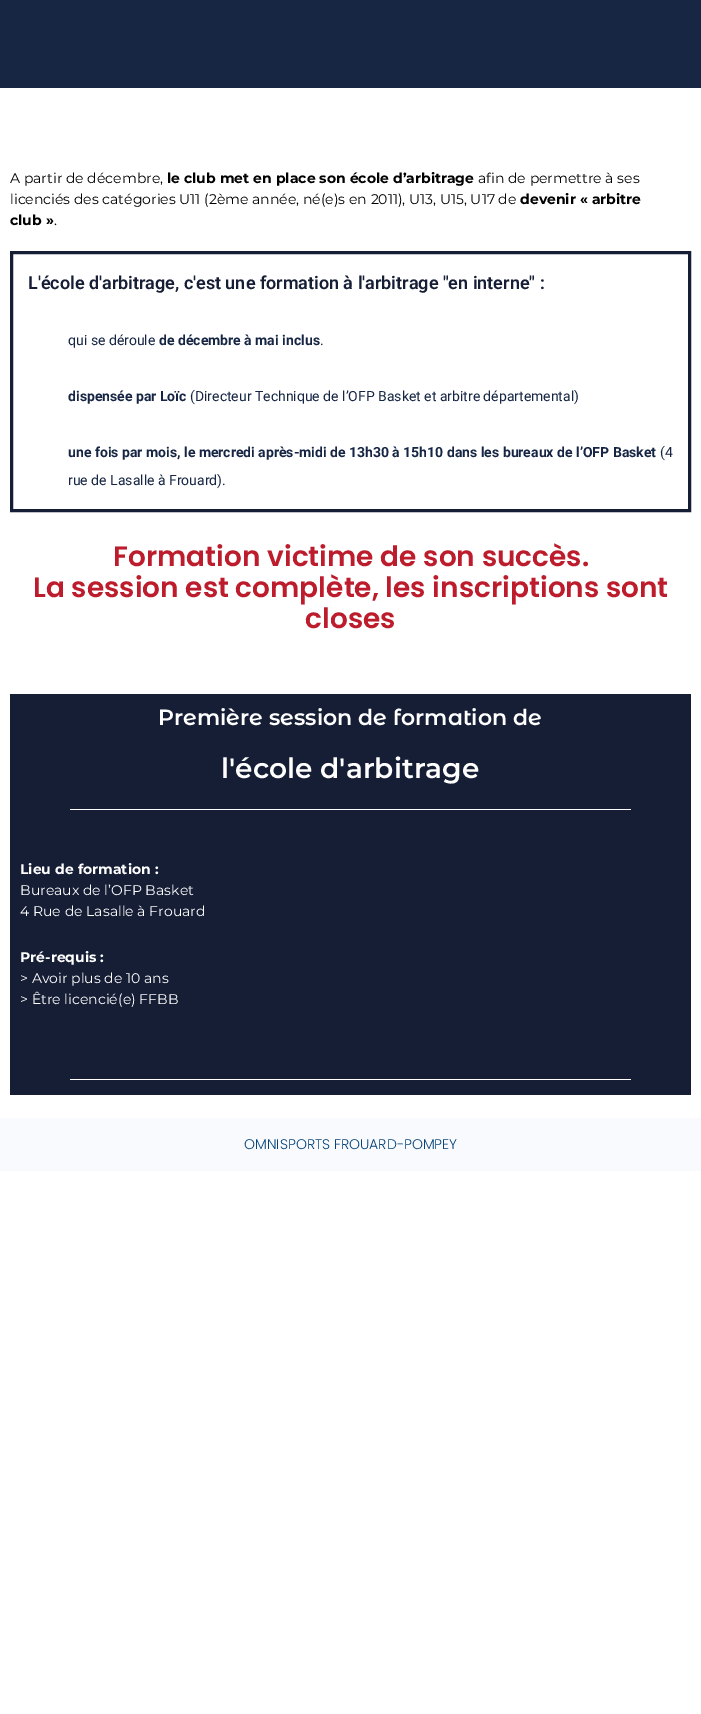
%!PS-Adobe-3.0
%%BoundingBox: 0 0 701 1714
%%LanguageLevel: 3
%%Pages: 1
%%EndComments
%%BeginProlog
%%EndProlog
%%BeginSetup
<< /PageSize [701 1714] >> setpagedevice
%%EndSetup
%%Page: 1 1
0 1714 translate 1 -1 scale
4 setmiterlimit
1 setgray
0 0 701 1714 rectfill
0.09 0.149 0.263 setrgbcolor
0 0 701 88 rectfill
0.086 0.118 0.212 setrgbcolor
3 setlinewidth
11.5 252.5 678 258 rectstroke
10 694 681 401 rectfill
1 setgray
70 809 561 1 rectfill
70 1079 561 1 rectfill
0.976 0.98 0.992 setrgbcolor
0 1118 701 53 rectfill
/Montserrat-Regular [14 0 0 -14 0 0] selectfont
0 setgray
10 183 moveto (A partir de décembre,) show
/Montserrat-Bold [14 0 0 -14 0 0] selectfont
167 183 moveto (le club met en place son école d’arbitrage) show
/Montserrat-Regular [14 0 0 -14 0 0] selectfont
478 183 moveto (afin de permettre à ses) show
10 204 moveto (licenciés des catégories U11 \(2ème année, né\(e\)s en 2011\), U13, U15, U17 de) show
/Montserrat-Bold [14 0 0 -14 0 0] selectfont
520 204 moveto (devenir « arbitre) show
10 225 moveto (club ») show
/Montserrat-Regular [14 0 0 -14 0 0] selectfont
54 225 moveto (.) show
/Roboto-SemiBold [18 0 0 -18 0 0] selectfont
0.086 0.118 0.212 setrgbcolor
28 289 moveto (L'école d'arbitrage, c'est une formation à l'arbitrage "en interne" :) show
/Roboto-Regular [14 0 0 -14 0 0] selectfont
0.082 0.145 0.263 setrgbcolor
68 345 moveto (qui se déroule) show
/Roboto-Bold [14 0 0 -14 0 0] selectfont
159 345 moveto (de décembre à mai inclus) show
/Roboto-Regular [14 0 0 -14 0 0] selectfont
320 345 moveto (.) show
/Roboto-Bold [14 0 0 -14 0 0] selectfont
68 401 moveto (dispensée par Loïc) show
/Roboto-Regular [14 0 0 -14 0 0] selectfont
190 401 moveto (\(Directeur Technique de l’OFP Basket et arbitre départemental\)) show
/Roboto-Bold [14 0 0 -14 0 0] selectfont
68 457 moveto (une fois par mois, le mercredi après-midi de 13h30 à 15h10 dans les bureaux de l’OFP Basket) show
/Roboto-Regular [14 0 0 -14 0 0] selectfont
660 457 moveto (\(4) show
68 485 moveto (rue de Lasalle à Frouard\).) show
/Poppins-SemiBold [28 0 0 -28 0 0] selectfont
0.737 0.11 0.173 setrgbcolor
113 566 moveto (Formation victime de son succès.) show
33 597 moveto (La session est complète, les inscriptions sont) show
305 628 moveto (closes) show
/MontserratAlternates-SemiBold [22 0 0 -22 0 0] selectfont
1 setgray
158 725 moveto (Première session de formation de) show
/Montserrat-SemiBold [28 0 0 -28 0 0] selectfont
221 778 moveto (l'école d'arbitrage) show
/Montserrat-Bold [14 0 0 -14 0 0] selectfont
20 874 moveto (Lieu de formation :) show
/Montserrat-Regular [14 0 0 -14 0 0] selectfont
20 895 moveto (Bureaux de l’OFP Basket) show
20 916 moveto (4 Rue de Lasalle à Frouard) show
/Montserrat-Bold [14 0 0 -14 0 0] selectfont
20 962 moveto (Pré-requis :) show
/Montserrat-Regular [14 0 0 -14 0 0] selectfont
20 983 moveto (> Avoir plus de 10 ans) show
20 1004 moveto (> Être licencié\(e\) FFBB) show
/Poppins-Light [14 0 0 -14 0 0] selectfont
0.012 0.255 0.467 setrgbcolor
244 1149 moveto (OMNISPORTS FROUARD-POMPEY) show
showpage
%%EOF
